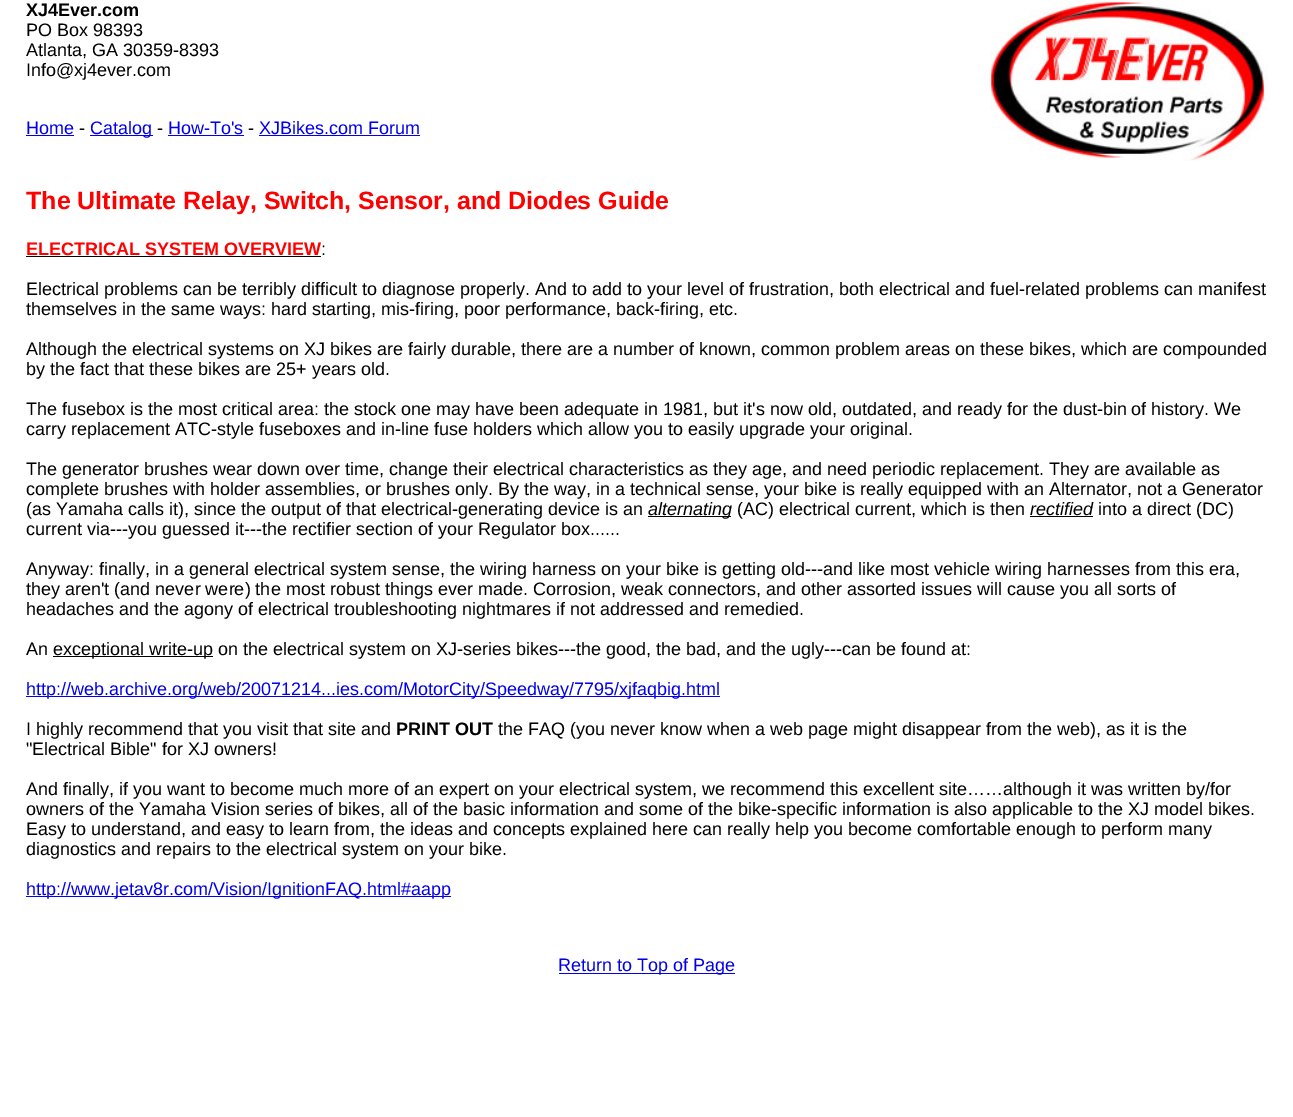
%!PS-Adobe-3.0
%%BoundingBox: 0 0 1293 1117
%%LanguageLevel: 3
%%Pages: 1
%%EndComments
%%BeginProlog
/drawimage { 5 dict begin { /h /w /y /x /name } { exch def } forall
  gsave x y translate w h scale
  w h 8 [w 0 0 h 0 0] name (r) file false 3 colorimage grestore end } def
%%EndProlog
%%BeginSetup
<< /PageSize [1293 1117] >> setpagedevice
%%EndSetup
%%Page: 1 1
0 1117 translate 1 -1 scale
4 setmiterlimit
1 setgray
0 0 1293 1117 rectfill
0 0 0.933 setrgbcolor
26 135 48 1 rectfill
90 135 63 1 rectfill
168 135 76 1 rectfill
259 135 161 1 rectfill
(images/1.raw) 990 0 278 161 drawimage
0 setgray
26 256 295 1 rectfill
648 516 83 1 rectfill
1030 516 63 1 rectfill
53 656 160 1 rectfill
0 0 0.933 setrgbcolor
26 696 694 1 rectfill
26 896 425 1 rectfill
559 973 176 1 rectfill
/LiberationSans-Bold [18 0 0 -18 0 0] selectfont
0 setgray
26 16 moveto (XJ4Ever.com) show
/LiberationSans-Regular [18 0 0 -18 0 0] selectfont
26 36 moveto (PO Box 98393) show
26 56 moveto (Atlanta, GA 30359-8393) show
26 76 moveto (Info@xj4ever.com) show
0 0 0.933 setrgbcolor
26 134 moveto (Home) show
0 setgray
79 134 moveto (-) show
0 0 0.933 setrgbcolor
90 134 moveto (Catalog) show
0 setgray
157 134 moveto (-) show
0 0 0.933 setrgbcolor
168 134 moveto (How-To's) show
0 setgray
248 134 moveto (-) show
0 0 0.933 setrgbcolor
259 134 moveto (XJBikes.com Forum) show
/LiberationSans-Bold [25 0 0 -25 0 0] selectfont
1 0 0 setrgbcolor
26 209 moveto (The Ultimate Relay, Switch, Sensor, and Diodes Guide) show
/LiberationSans-Bold [18 0 0 -18 0 0] selectfont
26 255 moveto (ELECTRICAL SYSTEM OVERVIEW) show
/LiberationSans-Regular [18 0 0 -18 0 0] selectfont
0 setgray
321 255 moveto (:) show
26 295 moveto (Electrical problems can be terribly difficult to diagnose properly.) show
535 295 moveto (And to add to your level of frustration, both electrical and) show
990 295 moveto (fuel-related problems can manifest) show
26 315 moveto (themselves in the same ways: hard starting, mis-firing, poor performance, back-firing, etc.) show
26 355 moveto (Although the electrical systems on XJ bikes are fairly durable, there) show
567 355 moveto (are a number of known, common problem areas on these bikes, which are) show
1163 355 moveto (compounded) show
26 375 moveto (by the fact that these bikes are 25+ years old.) show
26 415 moveto (The fusebox is the most critical area: the stock one may have been) show
564 415 moveto (adequate in 1981, but it's now old, outdated, and ready for the dust-bin) show
1131 415 moveto (of history. We) show
26 435 moveto (carry replacement ATC-style fuseboxes and in-line fuse) show
473 435 moveto (holders which allow you to easily upgrade your original.) show
26 475 moveto (The generator brushes wear down over time, change their electrical) show
569 475 moveto (characteristics as they age, and need periodic replacement.) show
1049 475 moveto (They are available as) show
26 495 moveto (complete brushes with holder assemblies, or brushes only.) show
498 495 moveto (By the way, in a technical sense, your bike is really equipped with an) show
1049 495 moveto (Alternator, not a Generator) show
26 515 moveto (\(as Yamaha calls it\), since the output of that electrical-generating device is an) show
/LiberationSans-Italic [18 0 0 -18 0 0] selectfont
648 515 moveto (alternating) show
/LiberationSans-Regular [18 0 0 -18 0 0] selectfont
737 515 moveto (\(AC\) electrical current, which is then) show
/LiberationSans-Italic [18 0 0 -18 0 0] selectfont
1030 515 moveto (rectified) show
/LiberationSans-Regular [18 0 0 -18 0 0] selectfont
1098 515 moveto (into a direct \(DC\)) show
26 535 moveto (current via---you guessed it---the rectifier section of your Regulator box......) show
26 575 moveto (Anyway: finally, in a general electrical system sense, the wiring harness on your bike is getting old---and like most vehicle wiring) show
1047 575 moveto (harnesses from this era,) show
26 595 moveto (they aren't \(and never were\) the most robust things ever made. Corrosion, weak connectors, and other assorted issues will cause you all sorts of) show
26 615 moveto (headaches and the agony of electrical troubleshooting nightmares if not addressed and remedied.) show
26 655 moveto (An) show
53 655 moveto (exceptional write-up on the electrical system on XJ-series bikes---the good, the bad, and the ugly---can be found at:) show
0 0 0.933 setrgbcolor
26 695 moveto (http://web.archive.org/web/20071214...ies.com/MotorCity/Speedway/7795/xjfaqbig.html) show
0 setgray
26 735 moveto (I highly recommend that you visit that site and) show
/LiberationSans-Bold [18 0 0 -18 0 0] selectfont
396 735 moveto (PRINT OUT) show
/LiberationSans-Regular [18 0 0 -18 0 0] selectfont
498 735 moveto (the FAQ \(you never know when a web page might disappear from the web\), as it is the) show
26 755 moveto ("Electrical Bible" for XJ owners!) show
26 795 moveto (And finally, if you want to become much more of an expert on your) show
559 795 moveto (electrical system, we recommend this excellent site……although it was) show
1128 795 moveto (written by/for) show
26 815 moveto (owners of the Yamaha Vision series of bikes, all of the basic information and some of the bike-specific information is also) show
992 815 moveto (applicable to the XJ model bikes.) show
26 835 moveto (Easy to understand, and easy to learn from, the ideas and concepts explained here can really help you) show
848 835 moveto (become comfortable enough to perform many) show
26 855 moveto (diagnostics and repairs to the electrical system on your bike.) show
0 0 0.933 setrgbcolor
26 895 moveto (http://www.jetav8r.com/Vision/IgnitionFAQ.html#aapp) show
558 971 moveto (Return to Top of Page) show
showpage
%%EOF
